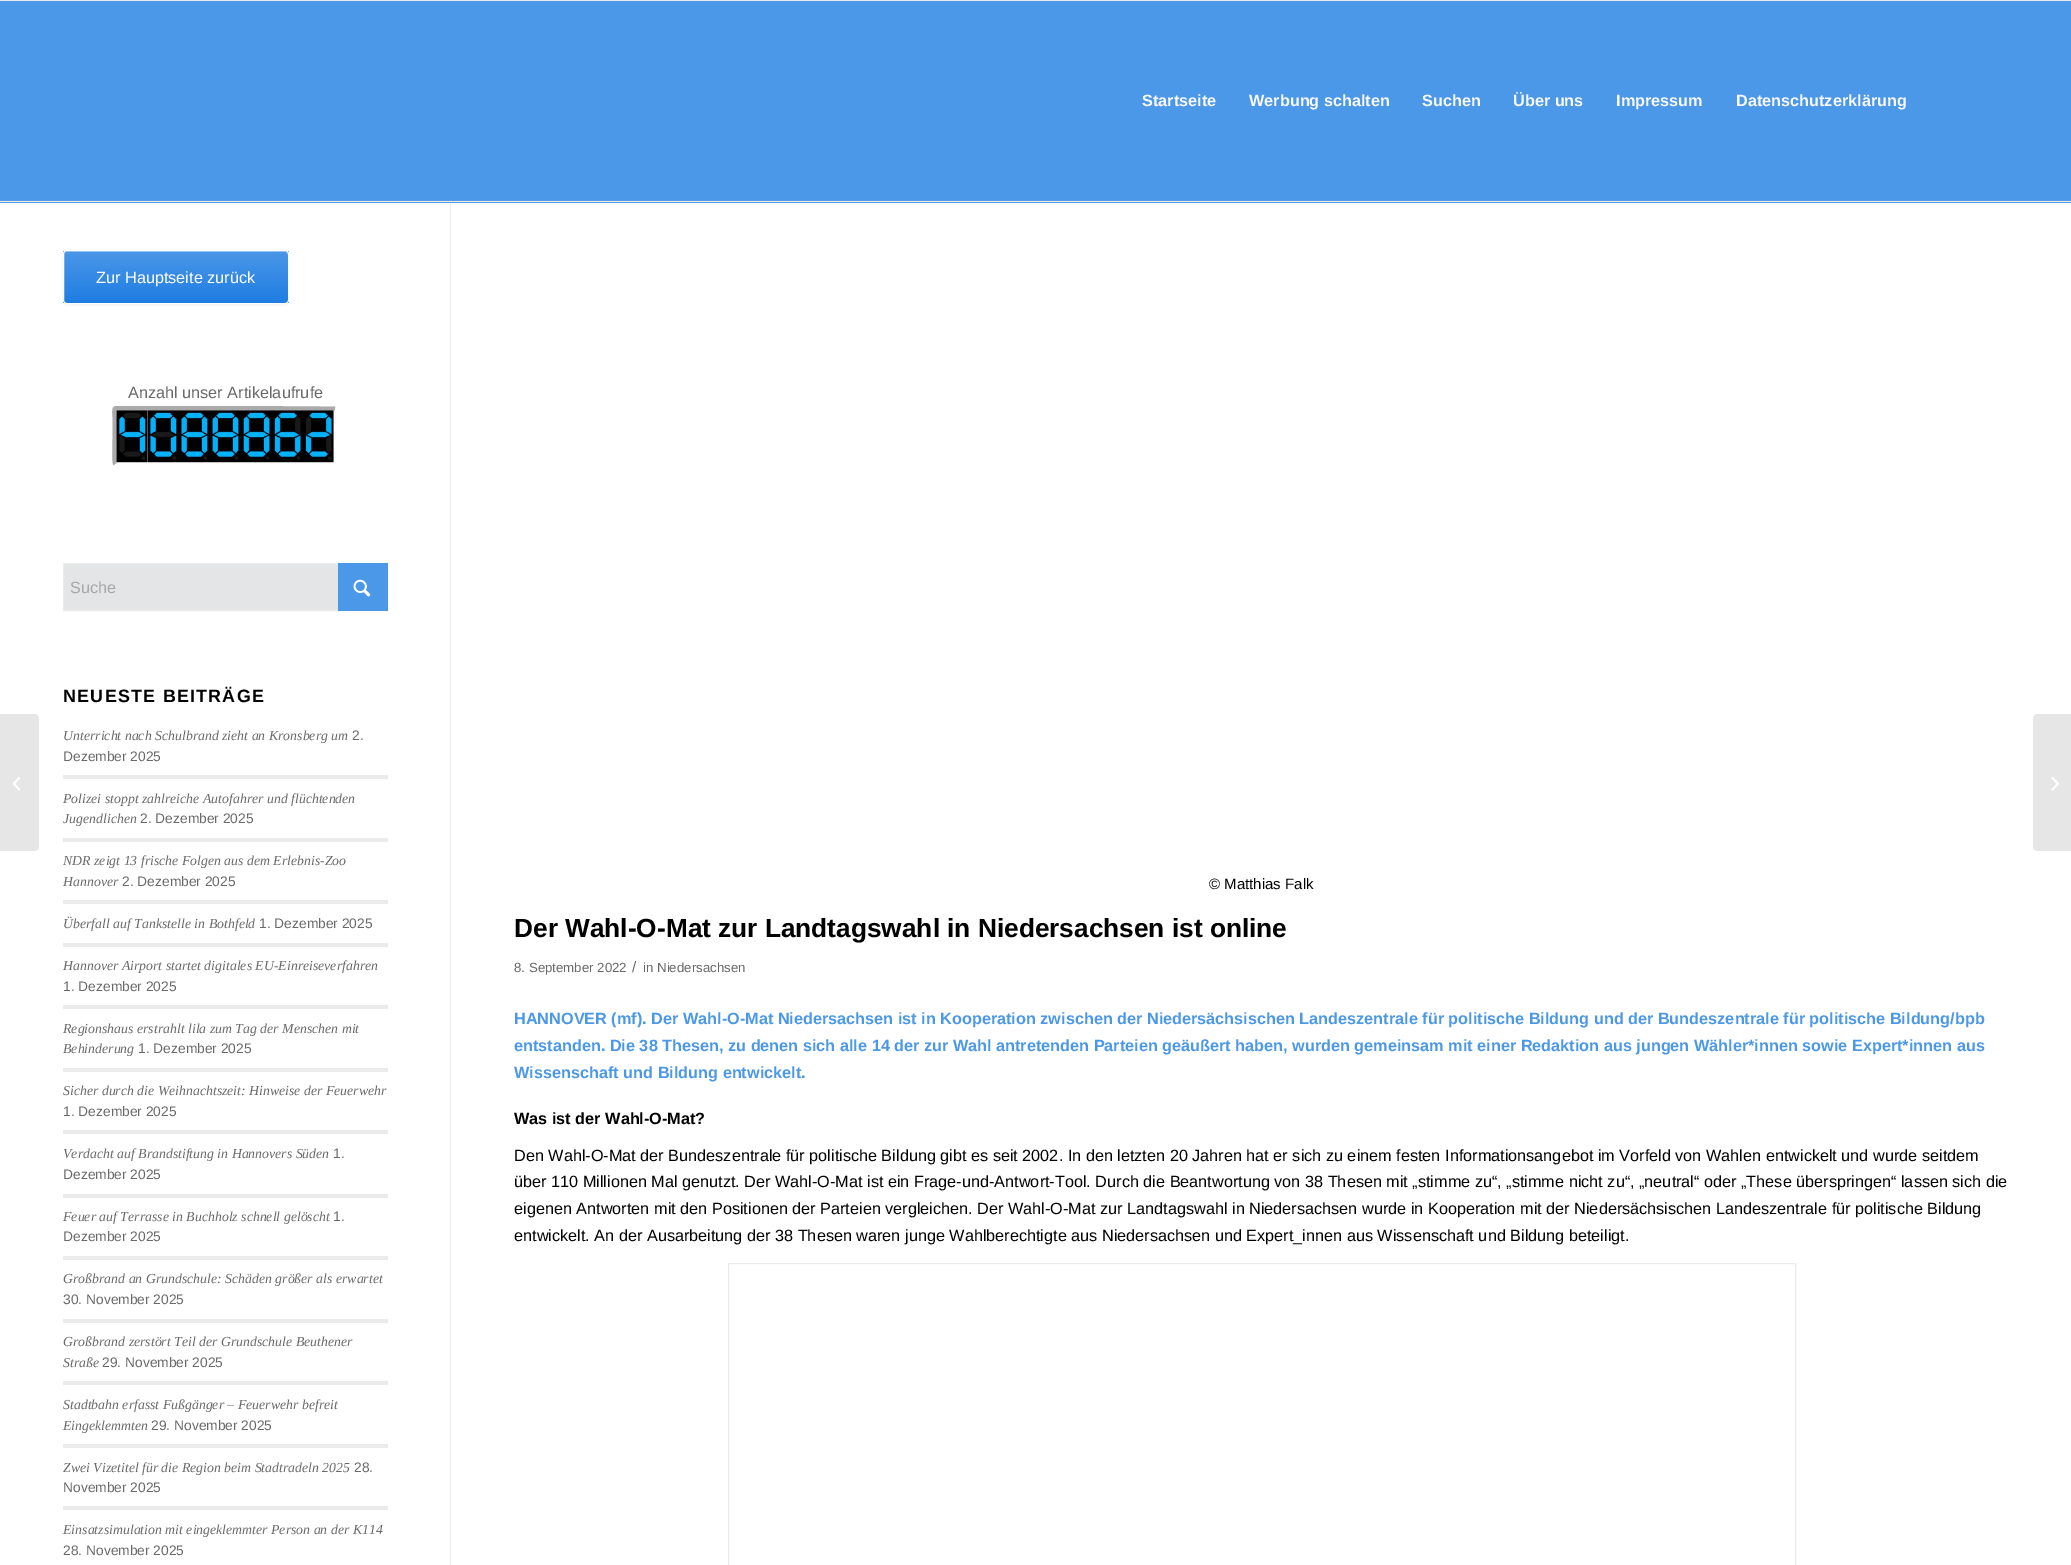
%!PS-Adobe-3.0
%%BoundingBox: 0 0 2071 1565
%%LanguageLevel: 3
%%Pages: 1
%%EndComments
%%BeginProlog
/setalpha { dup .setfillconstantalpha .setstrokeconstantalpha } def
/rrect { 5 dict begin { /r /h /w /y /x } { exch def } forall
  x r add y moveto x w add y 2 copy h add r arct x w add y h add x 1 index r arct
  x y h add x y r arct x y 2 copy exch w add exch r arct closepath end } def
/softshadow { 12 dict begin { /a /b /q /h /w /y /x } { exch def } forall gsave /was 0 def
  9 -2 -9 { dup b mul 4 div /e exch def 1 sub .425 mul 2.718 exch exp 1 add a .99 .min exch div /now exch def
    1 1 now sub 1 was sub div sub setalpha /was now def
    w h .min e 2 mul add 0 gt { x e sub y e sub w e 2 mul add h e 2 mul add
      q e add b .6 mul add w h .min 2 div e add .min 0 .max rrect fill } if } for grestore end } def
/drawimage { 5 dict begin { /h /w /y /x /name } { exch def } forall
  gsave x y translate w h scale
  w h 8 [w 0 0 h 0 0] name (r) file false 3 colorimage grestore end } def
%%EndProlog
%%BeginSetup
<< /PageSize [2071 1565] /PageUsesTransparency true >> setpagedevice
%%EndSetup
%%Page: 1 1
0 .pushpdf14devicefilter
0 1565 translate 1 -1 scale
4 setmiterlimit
0.294 0.592 0.91 setrgbcolor
0 0 2071 1565 rectfill
0.922 setgray
0 0 2071 1 rectfill
1 setgray
0 203 2071 1362 rectfill
0.329 0.612 0.914 setrgbcolor
0 202 2071 1 rectfill
0.922 setgray
450 201 1 1364 rectfill
0.325 0.608 0.91 setrgbcolor
450 201 1 2 rectfill
0.922 setgray
0 201 2071 1 rectfill
0.902 setgray
newpath 0 714 moveto 34 714 lineto 37 714 39 716 39 719 curveto 39 846 lineto 39 849 37 851 34 851 curveto 0 851 lineto closepath fill
(images/1.raw) 13 777 7 14 drawimage
0.325 0.608 0.91 setrgbcolor
0 200 2071 1 rectfill
0 setgray
63 251 226 54 4 1 0.07 softshadow
gsave
63 250 226 54 4 rrect clip newpath
gsave newpath 63 251 moveto 289 251 lineto 289 303 lineto 63 303 lineto closepath clip newpath
<< /ShadingType 2 /ColorSpace /DeviceRGB /Coords [64 303 64 251] /Extend [true true] /Function << /FunctionType 2 /Domain [0 1] /C0 [0.118 0.49 0.886] /C1 [0.294 0.592 0.91] /N 1 >> >> shfill grestore
grestore
0.435 0.675 0.929 setrgbcolor
newpath 67 252 moveto 285 252 lineto 286 252 288 254 288 255 curveto 288 253 288 251 286 251 curveto 66 251 lineto 64 251 64 253 64 255 curveto 64 254 65 252 67 252 curveto closepath fill
1 setgray
63.5 250.5 225 53 3.5 rrect stroke
0.667 setgray
3.8 setlinewidth
newpath 115 464 moveto 113.5 462 114.5 439.5 114.5 436 curveto 114.5 419 lineto 114.5 415 113 408 116 408 curveto 261 408 lineto 335 408.5 lineto stroke
(images/2.raw) 116 410 218 53 drawimage
0.89 0.898 0.902 setrgbcolor
64 564 274 46 rectfill
0.922 setgray
1 setlinewidth
63.5 563.5 324 47 rectstroke
0.294 0.592 0.91 setrgbcolor
338 563 50 48 rectfill
(images/3.raw) 353 579 18 18 drawimage
0.922 setgray
63 775 325 4 rectfill
63 838 325 4 rectfill
63 900 325 4 rectfill
63 943 325 4 rectfill
63 1005 325 4 rectfill
63 1068 325 4 rectfill
63 1130 325 4 rectfill
63 1194 325 4 rectfill
63 1256 325 4 rectfill
63 1319 325 4 rectfill
63 1381 325 4 rectfill
63 1444 325 4 rectfill
63 1506 325 4 rectfill
728.5 1263.5 1067 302 rectstroke
0.902 setgray
newpath 2038 714 moveto 2071 714 lineto 2071 851 lineto 2038 851 lineto 2035 851 2033 849 2033 846 curveto 2033 719 lineto 2033 716 2035 714 2038 714 curveto closepath fill
(images/4.raw) 2051 777 8 14 drawimage
/LiberationSans-Bold [16.25 0 0 -16.25 0 0] selectfont
0.973 setgray
1142 106 moveto (Startseite) show
1249 106 moveto (Werbung schalten) show
1422 106 moveto (Suchen) show
1513 106 moveto (Über uns) show
1616 106 moveto (Impressum) show
1736 106 moveto (Datenschutzerklärung) show
/LiberationSans-Regular [16.25 0 0 -16.25 0 0] selectfont
1 setgray
96 283 moveto (Zur Hauptseite zurück) show
0.412 setgray
128 398 moveto (Anzahl unser Artikelaufrufe) show
0.651 0.655 0.659 setrgbcolor
70 593 moveto (Suche) show
/LiberationSans-Bold [17.9 0 0 -17.9 0 0] selectfont
0 setgray
63 702 moveto 1.25 0 (NEUESTE BEITRÄGE) ashow
/LiberationSerif-Italic [13.8 0 0 -13.8 0 0] selectfont
0.412 setgray
63 740 moveto (Unterricht nach Schulbrand zieht an Kronsberg um) show
/LiberationSans-Regular [13.8 0 0 -13.8 0 0] selectfont
352 740 moveto (2.) show
63 761 moveto (Dezember 2025) show
/LiberationSerif-Italic [13.8 0 0 -13.8 0 0] selectfont
63 803 moveto (Polizei stoppt zahlreiche Autofahrer und flüchtenden) show
63 823 moveto (Jugendlichen) show
/LiberationSans-Regular [13.8 0 0 -13.8 0 0] selectfont
140 823 moveto (2. Dezember 2025) show
/LiberationSerif-Italic [13.8 0 0 -13.8 0 0] selectfont
63 865 moveto (NDR zeigt 13 frische Folgen aus dem Erlebnis-Zoo) show
63 886 moveto (Hannover) show
/LiberationSans-Regular [13.8 0 0 -13.8 0 0] selectfont
122 886 moveto (2. Dezember 2025) show
/LiberationSerif-Italic [13.8 0 0 -13.8 0 0] selectfont
63 928 moveto (Überfall auf Tankstelle in Bothfeld) show
/LiberationSans-Regular [13.8 0 0 -13.8 0 0] selectfont
259 928 moveto (1. Dezember 2025) show
/LiberationSerif-Italic [13.8 0 0 -13.8 0 0] selectfont
63 970 moveto (Hannover Airport startet digitales EU-Einreiseverfahren) show
/LiberationSans-Regular [13.8 0 0 -13.8 0 0] selectfont
63 991 moveto (1. Dezember 2025) show
/LiberationSerif-Italic [13.8 0 0 -13.8 0 0] selectfont
63 1033 moveto (Regionshaus erstrahlt lila zum Tag der Menschen mit) show
63 1053 moveto (Behinderung) show
/LiberationSans-Regular [13.8 0 0 -13.8 0 0] selectfont
138 1053 moveto (1. Dezember 2025) show
/LiberationSerif-Italic [13.8 0 0 -13.8 0 0] selectfont
63 1095 moveto (Sicher durch die Weihnachtszeit: Hinweise der Feuerwehr) show
/LiberationSans-Regular [13.8 0 0 -13.8 0 0] selectfont
63 1116 moveto (1. Dezember 2025) show
/LiberationSerif-Italic [13.8 0 0 -13.8 0 0] selectfont
63 1158 moveto (Verdacht auf Brandstiftung in Hannovers Süden) show
/LiberationSans-Regular [13.8 0 0 -13.8 0 0] selectfont
333 1158 moveto (1.) show
63 1179 moveto (Dezember 2025) show
/LiberationSerif-Italic [13.8 0 0 -13.8 0 0] selectfont
63 1221 moveto (Feuer auf Terrasse in Buchholz schnell gelöscht) show
/LiberationSans-Regular [13.8 0 0 -13.8 0 0] selectfont
333 1221 moveto (1.) show
63 1241 moveto (Dezember 2025) show
/LiberationSerif-Italic [13.8 0 0 -13.8 0 0] selectfont
63 1283 moveto (Großbrand an Grundschule: Schäden größer als erwartet) show
/LiberationSans-Regular [13.8 0 0 -13.8 0 0] selectfont
63 1304 moveto (30. November 2025) show
/LiberationSerif-Italic [13.8 0 0 -13.8 0 0] selectfont
63 1346 moveto (Großbrand zerstört Teil der Grundschule Beuthener) show
63 1367 moveto (Straße) show
/LiberationSans-Regular [13.8 0 0 -13.8 0 0] selectfont
102 1367 moveto (29. November 2025) show
/LiberationSerif-Italic [13.8 0 0 -13.8 0 0] selectfont
63 1409 moveto (Stadtbahn erfasst Fußgänger – Feuerwehr befreit) show
63 1430 moveto (Eingeklemmten) show
/LiberationSans-Regular [13.8 0 0 -13.8 0 0] selectfont
151 1430 moveto (29. November 2025) show
/LiberationSerif-Italic [13.8 0 0 -13.8 0 0] selectfont
63 1472 moveto (Zwei Vizetitel für die Region beim Stadtradeln 2025) show
/LiberationSans-Regular [13.8 0 0 -13.8 0 0] selectfont
354 1472 moveto (28.) show
63 1492 moveto (November 2025) show
/LiberationSerif-Italic [13.8 0 0 -13.8 0 0] selectfont
63 1534 moveto (Einsatzsimulation mit eingeklemmter Person an der K114) show
/LiberationSans-Regular [13.8 0 0 -13.8 0 0] selectfont
63 1555 moveto (28. November 2025) show
/LiberationSans-Regular [15 0 0 -15 0 0] selectfont
0 setgray
1209 889 moveto (© Matthias Falk) show
/LiberationSans-Bold [26.25 0 0 -26.25 0 0] selectfont
514 937 moveto (Der Wahl-O-Mat zur Landtagswahl in Niedersachsen ist online) show
/LiberationSans-Regular [13.25 0 0 -13.25 0 0] selectfont
0.412 setgray
514 972 moveto (8. September 2022) show
/LiberationSans-Regular [15 0 0 -15 0 0] selectfont
632 972 moveto (/) show
/LiberationSans-Regular [13.25 0 0 -13.25 0 0] selectfont
643 972 moveto (in Niedersachsen) show
/LiberationSans-Bold [16.25 0 0 -16.25 0 0] selectfont
0.294 0.592 0.91 setrgbcolor
514 1024 moveto (HANNOVER \(mf\). Der Wahl-O-Mat Niedersachsen ist in Kooperation zwischen der Niedersächsischen Landeszentrale für politische Bildung und der Bundeszentrale für politische Bildung/bpb) show
514 1051 moveto (entstanden. Die 38 Thesen, zu denen sich alle 14 der zur Wahl antretenden Parteien geäußert haben, wurden gemeinsam mit einer Redaktion aus jungen Wähler*innen sowie Expert*innen aus) show
514 1078 moveto (Wissenschaft und Bildung entwickelt.) show
0 setgray
514 1124 moveto (Was ist der Wahl-O-Mat?) show
/LiberationSans-Regular [16.25 0 0 -16.25 0 0] selectfont
514 1161 moveto (Den Wahl-O-Mat der Bundeszentrale für politische Bildung gibt es seit 2002. In den letzten 20 Jahren hat er sich zu einem festen Informationsangebot im Vorfeld von Wahlen entwickelt und wurde seitdem) show
514 1187 moveto (über 110 Millionen Mal genutzt. Der Wahl-O-Mat ist ein Frage-und-Antwort-Tool. Durch die Beantwortung von 38 Thesen mit „stimme zu“, „stimme nicht zu“, „neutral“ oder „These überspringen“ lassen sich die) show
514 1214 moveto (eigenen Antworten mit den Positionen der Parteien vergleichen. Der Wahl-O-Mat zur Landtagswahl in Niedersachsen wurde in Kooperation mit der Niedersächsischen Landeszentrale für politische Bildung) show
514 1241 moveto (entwickelt. An der Ausarbeitung der 38 Thesen waren junge Wahlberechtigte aus Niedersachsen und Expert_innen aus Wissenschaft und Bildung beteiligt.) show
.poppdf14devicefilter showpage
%%EOF
